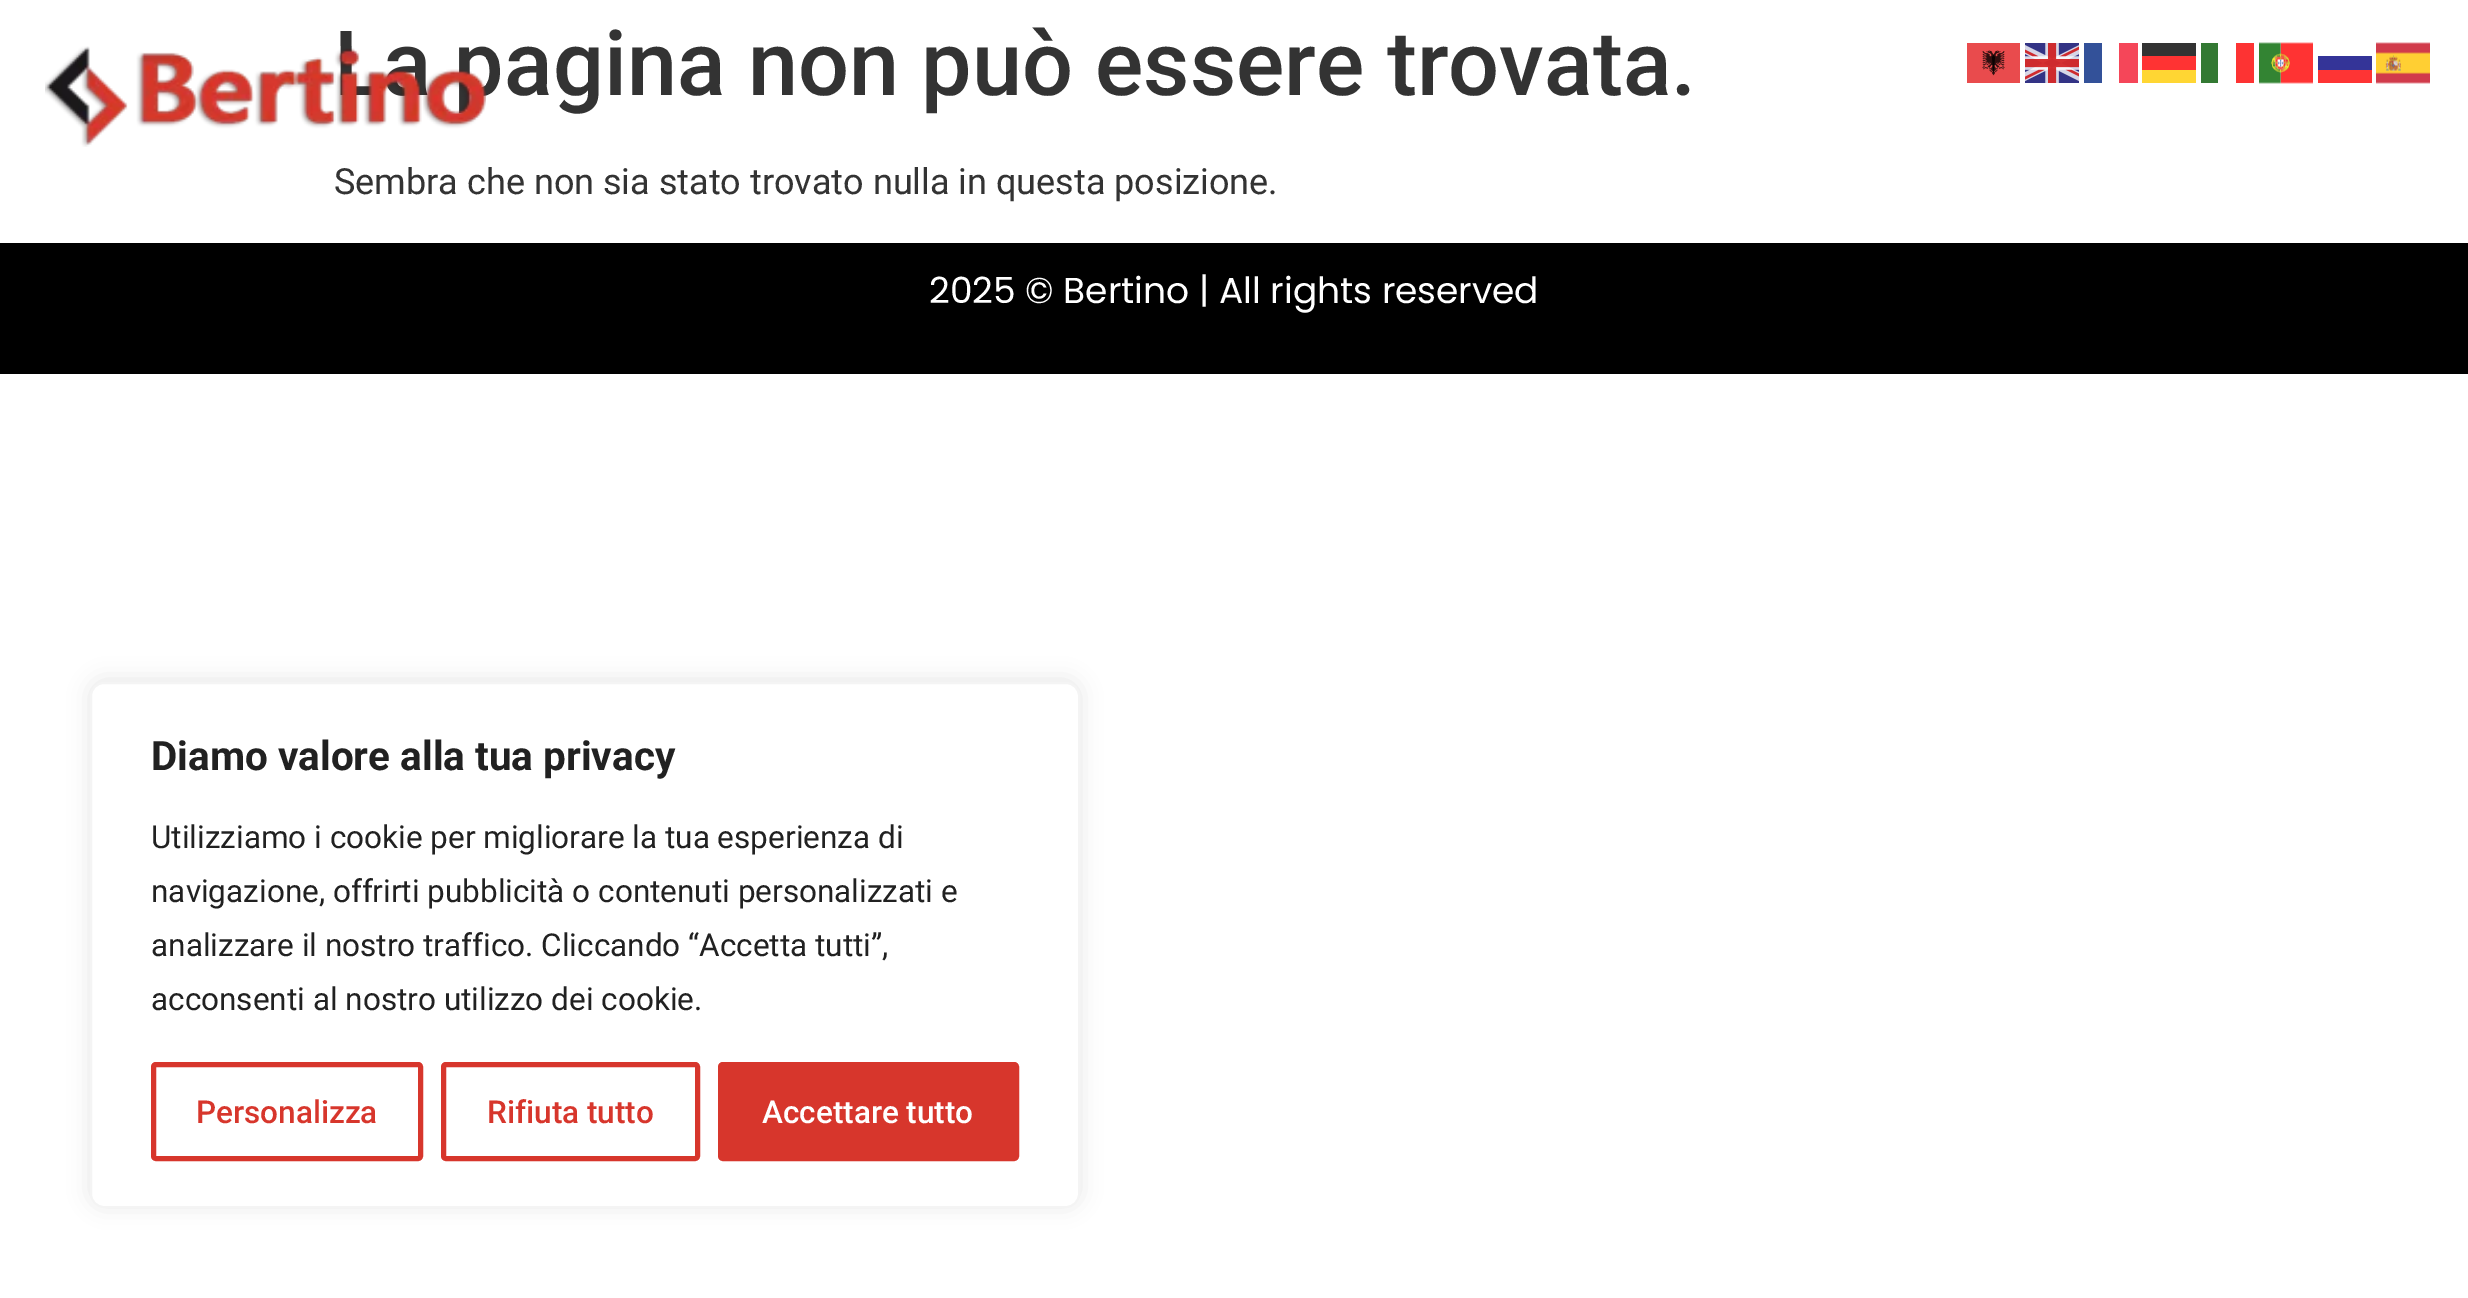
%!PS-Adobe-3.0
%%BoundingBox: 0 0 2468 1298
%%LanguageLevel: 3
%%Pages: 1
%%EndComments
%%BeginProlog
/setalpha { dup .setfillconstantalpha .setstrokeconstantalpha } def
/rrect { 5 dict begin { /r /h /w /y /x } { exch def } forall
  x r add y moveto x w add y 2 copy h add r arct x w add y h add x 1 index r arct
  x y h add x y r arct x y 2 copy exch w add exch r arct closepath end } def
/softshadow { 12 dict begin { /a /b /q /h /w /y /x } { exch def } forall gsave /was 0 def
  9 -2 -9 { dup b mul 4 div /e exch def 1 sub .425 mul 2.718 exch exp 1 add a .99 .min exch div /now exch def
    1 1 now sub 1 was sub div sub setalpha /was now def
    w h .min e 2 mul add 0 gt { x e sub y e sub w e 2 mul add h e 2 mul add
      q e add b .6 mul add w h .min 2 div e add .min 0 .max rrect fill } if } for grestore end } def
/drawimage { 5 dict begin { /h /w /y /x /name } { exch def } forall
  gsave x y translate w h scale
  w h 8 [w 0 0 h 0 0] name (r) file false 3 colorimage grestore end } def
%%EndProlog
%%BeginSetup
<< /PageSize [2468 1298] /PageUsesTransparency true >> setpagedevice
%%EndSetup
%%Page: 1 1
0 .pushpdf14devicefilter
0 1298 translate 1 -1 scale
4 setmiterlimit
1 setgray
0 0 2468 1298 rectfill
0 setgray
0 243 2468 131 rectfill
(images/2.raw) 1967 43 53 40 drawimage
(images/3.raw) 2025 43 54 40 drawimage
0.2 0.318 0.6 setrgbcolor
2084 43 18 40 rectfill
0.961 0.275 0.349 setrgbcolor
2119 43 19 40 rectfill
0.2 setgray
2142 43 54 13 rectfill
0.2 0.475 0.2 setrgbcolor
2201 43 17 40 rectfill
0.992 0.2 0.2 setrgbcolor
2236 43 18 40 rectfill
(images/4.raw) 2259 42 54 42 drawimage
(images/5.raw) 2376 42 54 42 drawimage
1 0.2 0.2 setrgbcolor
2142 56 54 14 rectfill
0.204 0.204 0.596 setrgbcolor
2318 56 54 14 rectfill
1 0.839 0.2 setrgbcolor
2142 70 54 13 rectfill
0.996 0.204 0.204 setrgbcolor
2318 70 54 13 rectfill
0.675 0.671 0.671 setrgbcolor
90 680 990 526 14 11 0.3 softshadow
1 setgray
91 683 988 524 13 rrect gsave fill grestore
0.957 setgray
2 setlinewidth
stroke
0.843 0.212 0.173 setrgbcolor
5 setlinewidth
153.5 1064.5 267 94 2.5 rrect stroke
443.5 1064.5 254 94 2.5 rrect stroke
720.5 1064.5 296 94 2.5 rrect gsave fill grestore
stroke
/Roboto-Medium [90 0 0 -90 0 0] selectfont
0.2 setgray
334 95 moveto (La pagina non può essere trovata.) show
(images/1.raw) 45 46 441 101 drawimage
/Roboto-Regular [36 0 0 -36 0 0] selectfont
334 194 moveto (Sembra che non sia stato trovato nulla in questa posizione.) show
/Poppins-Regular [36 0 0 -36 0 0] selectfont
1 setgray
929 303 moveto (2025 © Bertino | All rights reserved) show
/Roboto-Bold [40.5 0 0 -40.5 0 0] selectfont
0.129 setgray
151 770 moveto (Diamo valore alla tua privacy) show
/Roboto-Regular [31.5 0 0 -31.5 0 0] selectfont
151 848 moveto (Utilizziamo i cookie per migliorare la tua esperienza di) show
151 902 moveto (navigazione, offrirti pubblicità o contenuti personalizzati e) show
151 956 moveto (analizzare il nostro traffico. Cliccando “Accetta tutti”,) show
151 1010 moveto (acconsenti al nostro utilizzo dei cookie.) show
/Roboto-Medium [31.5 0 0 -31.5 0 0] selectfont
0.843 0.212 0.173 setrgbcolor
196 1123 moveto (Personalizza) show
487 1123 moveto (Rifiuta tutto) show
1 setgray
762 1123 moveto (Accettare tutto) show
.poppdf14devicefilter showpage
%%EOF
